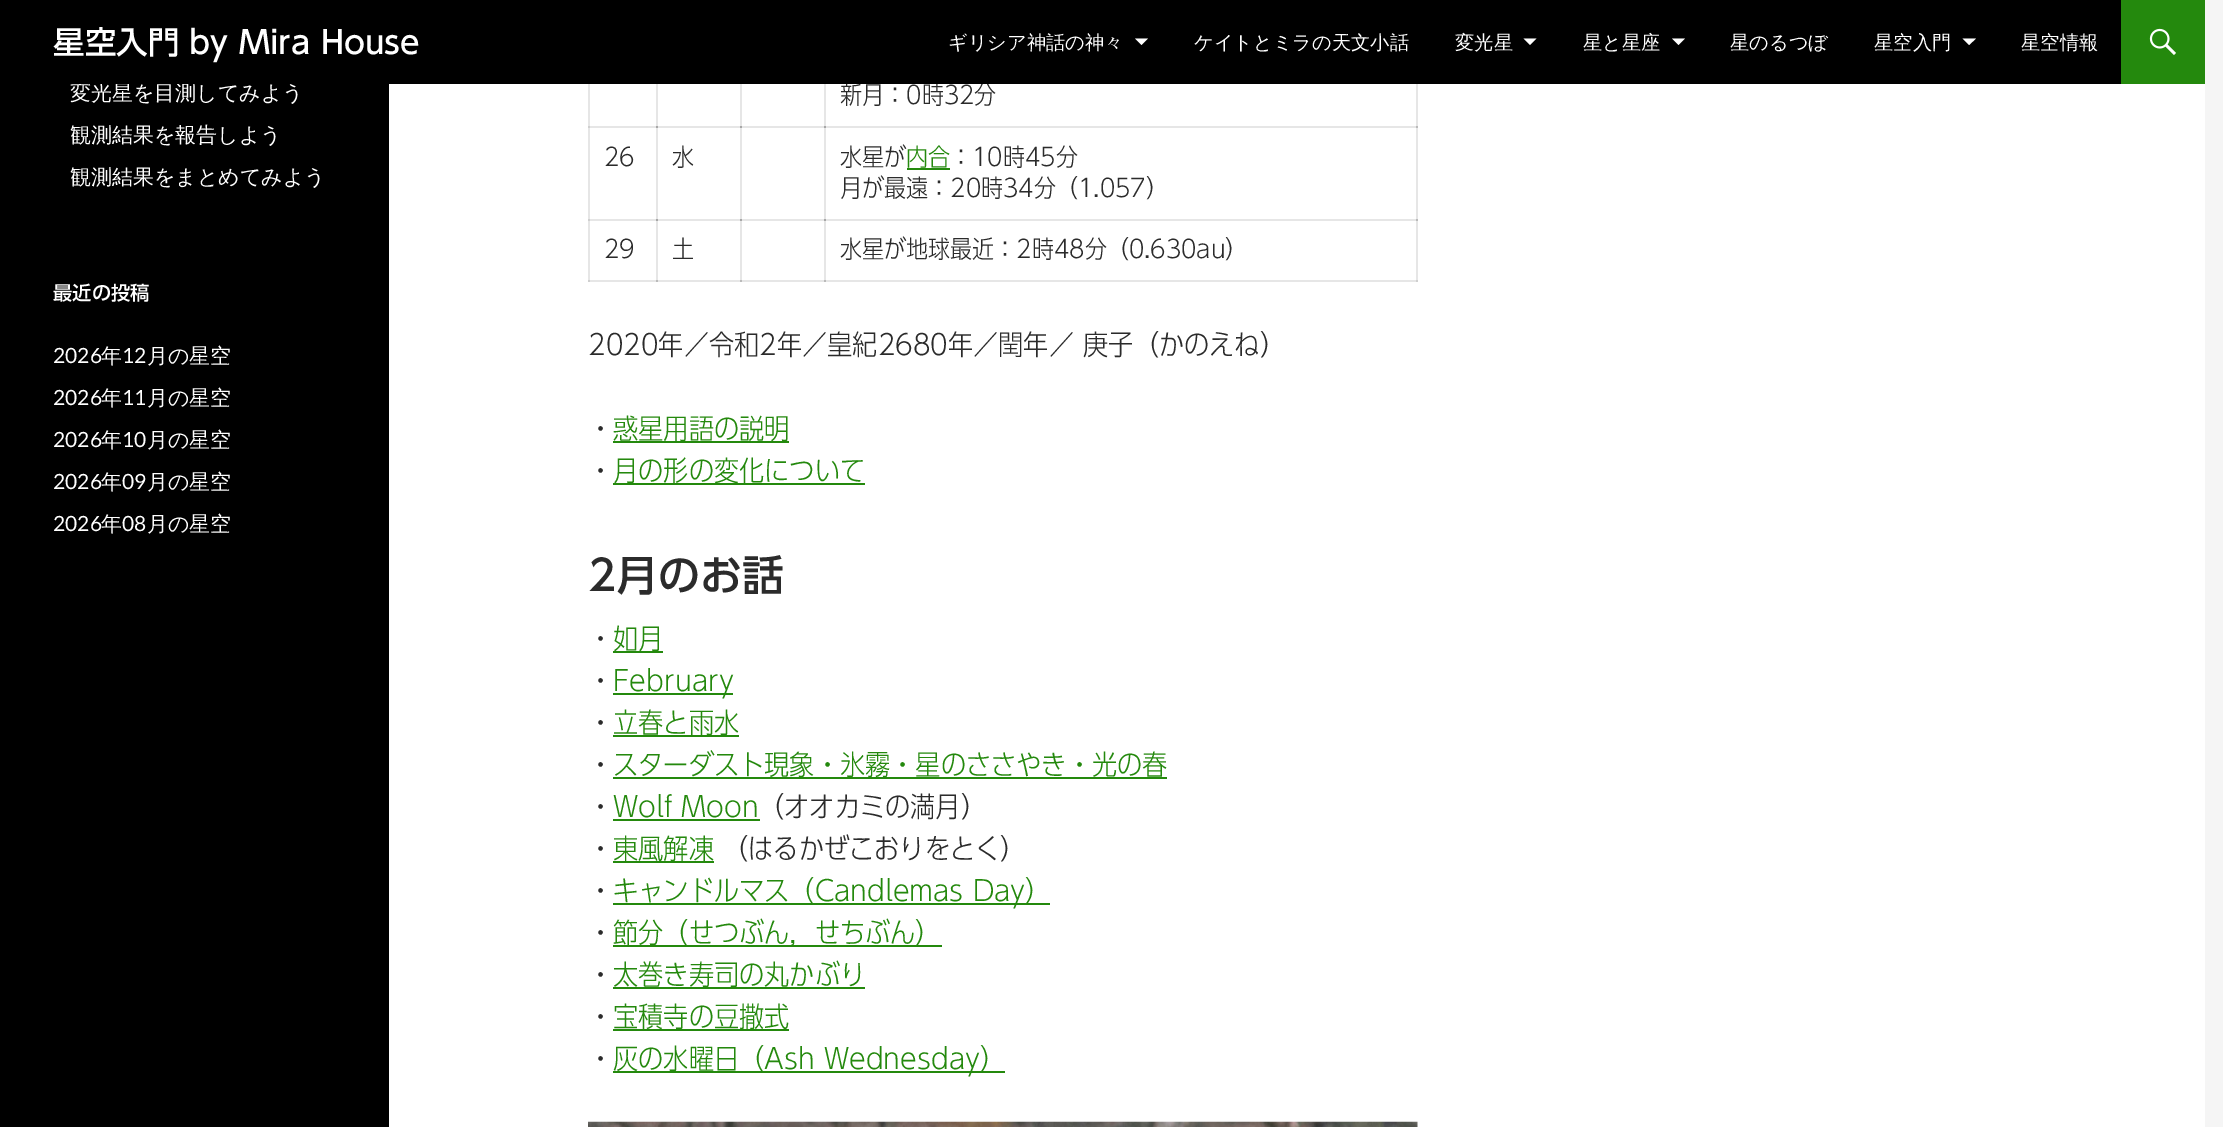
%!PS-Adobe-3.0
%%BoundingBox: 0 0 2223 1127
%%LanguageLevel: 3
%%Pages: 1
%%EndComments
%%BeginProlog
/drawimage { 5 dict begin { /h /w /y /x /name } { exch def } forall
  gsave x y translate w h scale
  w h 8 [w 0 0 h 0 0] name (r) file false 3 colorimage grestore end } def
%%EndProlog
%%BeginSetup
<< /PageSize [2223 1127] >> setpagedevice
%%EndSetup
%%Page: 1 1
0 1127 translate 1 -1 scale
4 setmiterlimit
0.961 setgray
0 0 2223 1127 rectfill
1 setgray
389 84 1816 1043 rectfill
0.902 setgray
588 126 70 2 rectfill
656 84 2 44 rectfill
656 126 86 2 rectfill
740 84 2 44 rectfill
740 126 86 2 rectfill
824 84 2 44 rectfill
824 126 594 2 rectfill
1416 84 2 44 rectfill
588 219 70 2 rectfill
656 126 2 95 rectfill
0.655 setgray
656 126 2 2 rectfill
0.902 setgray
656 219 86 2 rectfill
740 126 2 95 rectfill
0.655 setgray
740 126 2 2 rectfill
0.902 setgray
740 219 86 2 rectfill
824 126 2 95 rectfill
0.655 setgray
824 126 2 2 rectfill
0.902 setgray
824 219 594 2 rectfill
1416 126 2 95 rectfill
0.729 setgray
1416 126 2 2 rectfill
0.902 setgray
588 280 70 2 rectfill
656 219 2 63 rectfill
0.655 setgray
656 219 2 2 rectfill
0.902 setgray
656 280 86 2 rectfill
0.729 setgray
656 280 2 2 rectfill
0.902 setgray
740 219 2 63 rectfill
0.655 setgray
740 219 2 2 rectfill
0.902 setgray
740 280 86 2 rectfill
0.729 setgray
740 280 2 2 rectfill
0.902 setgray
824 219 2 63 rectfill
0.655 setgray
824 219 2 2 rectfill
0.902 setgray
824 280 594 2 rectfill
0.729 setgray
824 280 2 2 rectfill
0.141 0.537 0.051 setrgbcolor
2121 0 84 84 rectfill
(images/1.raw) 2149 28 27 27 drawimage
0.902 setgray
588 84 2 198 rectfill
0.812 setgray
588 126 2 2 rectfill
588 219 2 2 rectfill
588 280 2 2 rectfill
0.141 0.537 0.051 setrgbcolor
907 168 43 2 rectfill
0.902 setgray
1416 219 2 63 rectfill
0.729 setgray
1416 219 2 2 rectfill
0.812 setgray
1416 280 2 2 rectfill
0.141 0.537 0.051 setrgbcolor
613 441 176 2 rectfill
613 483 252 2 rectfill
613 651 50 2 rectfill
613 693 120 2 rectfill
613 735 126 2 rectfill
613 777 554 2 rectfill
613 819 147 2 rectfill
613 861 101 2 rectfill
613 903 437 2 rectfill
613 945 329 2 rectfill
613 987 252 2 rectfill
613 1029 176 2 rectfill
613 1071 392 2 rectfill
(images/2.raw) 588 1121 830 6 drawimage
0 setgray
0 84 389 1043 rectfill
/WenQuanYiZenHei-Medium [21 0 0 -21 0 0] selectfont
1 setgray
70 100 moveto (変光星を目測してみよう) show
70 142 moveto (観測結果を報告しよう) show
70 184 moveto (観測結果をまとめてみよう) show
/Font-Medium [19.25 0 0 -19.25 0 0] selectfont
53 300 moveto (最近の投稿) show
/Lato-Regular [21 0 0 -21 0 0] selectfont
53 363 moveto (2026) show
/WenQuanYiZenHei-Medium [21 0 0 -21 0 0] selectfont
101 363 moveto (年) show
/Lato-Regular [21 0 0 -21 0 0] selectfont
122 363 moveto (12) show
/WenQuanYiZenHei-Medium [21 0 0 -21 0 0] selectfont
147 363 moveto (月の星空) show
/Lato-Regular [21 0 0 -21 0 0] selectfont
53 405 moveto (2026) show
/WenQuanYiZenHei-Medium [21 0 0 -21 0 0] selectfont
101 405 moveto (年) show
/Lato-Regular [21 0 0 -21 0 0] selectfont
122 405 moveto (11) show
/WenQuanYiZenHei-Medium [21 0 0 -21 0 0] selectfont
147 405 moveto (月の星空) show
/Lato-Regular [21 0 0 -21 0 0] selectfont
53 447 moveto (2026) show
/WenQuanYiZenHei-Medium [21 0 0 -21 0 0] selectfont
101 447 moveto (年) show
/Lato-Regular [21 0 0 -21 0 0] selectfont
122 447 moveto (10) show
/WenQuanYiZenHei-Medium [21 0 0 -21 0 0] selectfont
147 447 moveto (月の星空) show
/Lato-Regular [21 0 0 -21 0 0] selectfont
53 489 moveto (2026) show
/WenQuanYiZenHei-Medium [21 0 0 -21 0 0] selectfont
101 489 moveto (年) show
/Lato-Regular [21 0 0 -21 0 0] selectfont
122 489 moveto (09) show
/WenQuanYiZenHei-Medium [21 0 0 -21 0 0] selectfont
147 489 moveto (月の星空) show
/Lato-Regular [21 0 0 -21 0 0] selectfont
53 531 moveto (2026) show
/WenQuanYiZenHei-Medium [21 0 0 -21 0 0] selectfont
101 531 moveto (年) show
/Lato-Regular [21 0 0 -21 0 0] selectfont
122 531 moveto (08) show
/WenQuanYiZenHei-Medium [21 0 0 -21 0 0] selectfont
147 531 moveto (月の星空) show
/Font-Light [24.5 0 0 -24.5 0 0] selectfont
0.169 setgray
840 104 moveto (新月：0時32分) show
0 setgray
0 0 2121 84 rectfill
/WenQuanYiZenHei-Medium [19.25 0 0 -19.25 0 0] selectfont
1 setgray
2021 49 moveto (星空情報) show
newpath 1962.5 38.5 moveto 1969 45 lineto 1976 38.5 lineto closepath fill
1874 49 moveto (星空入門) show
1730 49 moveto (星のるつぼ) show
newpath 1672 38.5 moveto 1678.5 45 lineto 1685 38.5 lineto closepath fill
1583 49 moveto (星と星座) show
newpath 1523.5 38.5 moveto 1530 45 lineto 1536.5 38.5 lineto closepath fill
1455 49 moveto (変光星) show
1194 49 moveto (ケイトとミラの天文小話) show
newpath 1135 38.5 moveto 1141.5 45 lineto 1148 38.5 lineto closepath fill
948 49 moveto (ギリシア神話の神々) show
/Font-Medium [31.5 0 0 -31.5 0 0] selectfont
53 54 moveto (星空入門 by Mira House) show
/Font-Light [24.5 0 0 -24.5 0 0] selectfont
0.169 setgray
604 166 moveto (26) show
672 166 moveto (水) show
840 166 moveto (水星が) show
0.141 0.537 0.051 setrgbcolor
906 166 moveto (内合) show
0.169 setgray
950 166 moveto (：10時45分) show
840 197 moveto (月が最遠：20時34分（1.057）) show
604 258 moveto (29) show
672 258 moveto (土) show
840 258 moveto (水星が地球最近：2時48分（0.630au）) show
/Font-Light [28 0 0 -28 0 0] selectfont
588 355 moveto (2020年／令和2年／皇紀2680年／閏年／ 庚子（かのえね）) show
588 439 moveto (・) show
0.141 0.537 0.051 setrgbcolor
613 439 moveto (惑星用語の説明) show
0.169 setgray
588 481 moveto (・) show
0.141 0.537 0.051 setrgbcolor
613 481 moveto (月の形の変化について) show
/Font-Medium [42 0 0 -42 0 0] selectfont
0.169 setgray
588 591 moveto (2月のお話) show
/Font-Light [28 0 0 -28 0 0] selectfont
588 649 moveto (・) show
0.141 0.537 0.051 setrgbcolor
613 649 moveto (如月) show
0.169 setgray
588 691 moveto (・) show
0.141 0.537 0.051 setrgbcolor
613 691 moveto (February) show
0.169 setgray
588 733 moveto (・) show
0.141 0.537 0.051 setrgbcolor
613 733 moveto (立春と雨水) show
0.169 setgray
588 775 moveto (・) show
0.141 0.537 0.051 setrgbcolor
613 775 moveto (スターダスト現象・氷霧・星のささやき・光の春) show
0.169 setgray
588 817 moveto (・) show
0.141 0.537 0.051 setrgbcolor
613 817 moveto (Wolf Moon) show
0.169 setgray
759 817 moveto (（オオカミの満月）) show
588 859 moveto (・) show
0.141 0.537 0.051 setrgbcolor
613 859 moveto (東風解凍) show
0.169 setgray
723 859 moveto (（はるかぜこおりをとく）) show
588 901 moveto (・) show
0.141 0.537 0.051 setrgbcolor
613 901 moveto (キャンドルマス（Candlemas Day）) show
0.169 setgray
588 943 moveto (・) show
0.141 0.537 0.051 setrgbcolor
613 943 moveto (節分（せつぶん，せちぶん）) show
0.169 setgray
588 985 moveto (・) show
0.141 0.537 0.051 setrgbcolor
613 985 moveto (太巻き寿司の丸かぶり) show
0.169 setgray
588 1027 moveto (・) show
0.141 0.537 0.051 setrgbcolor
613 1027 moveto (宝積寺の豆撒式) show
0.169 setgray
588 1069 moveto (・) show
0.141 0.537 0.051 setrgbcolor
613 1069 moveto (灰の水曜日（Ash Wednesday）) show
showpage
%%EOF
